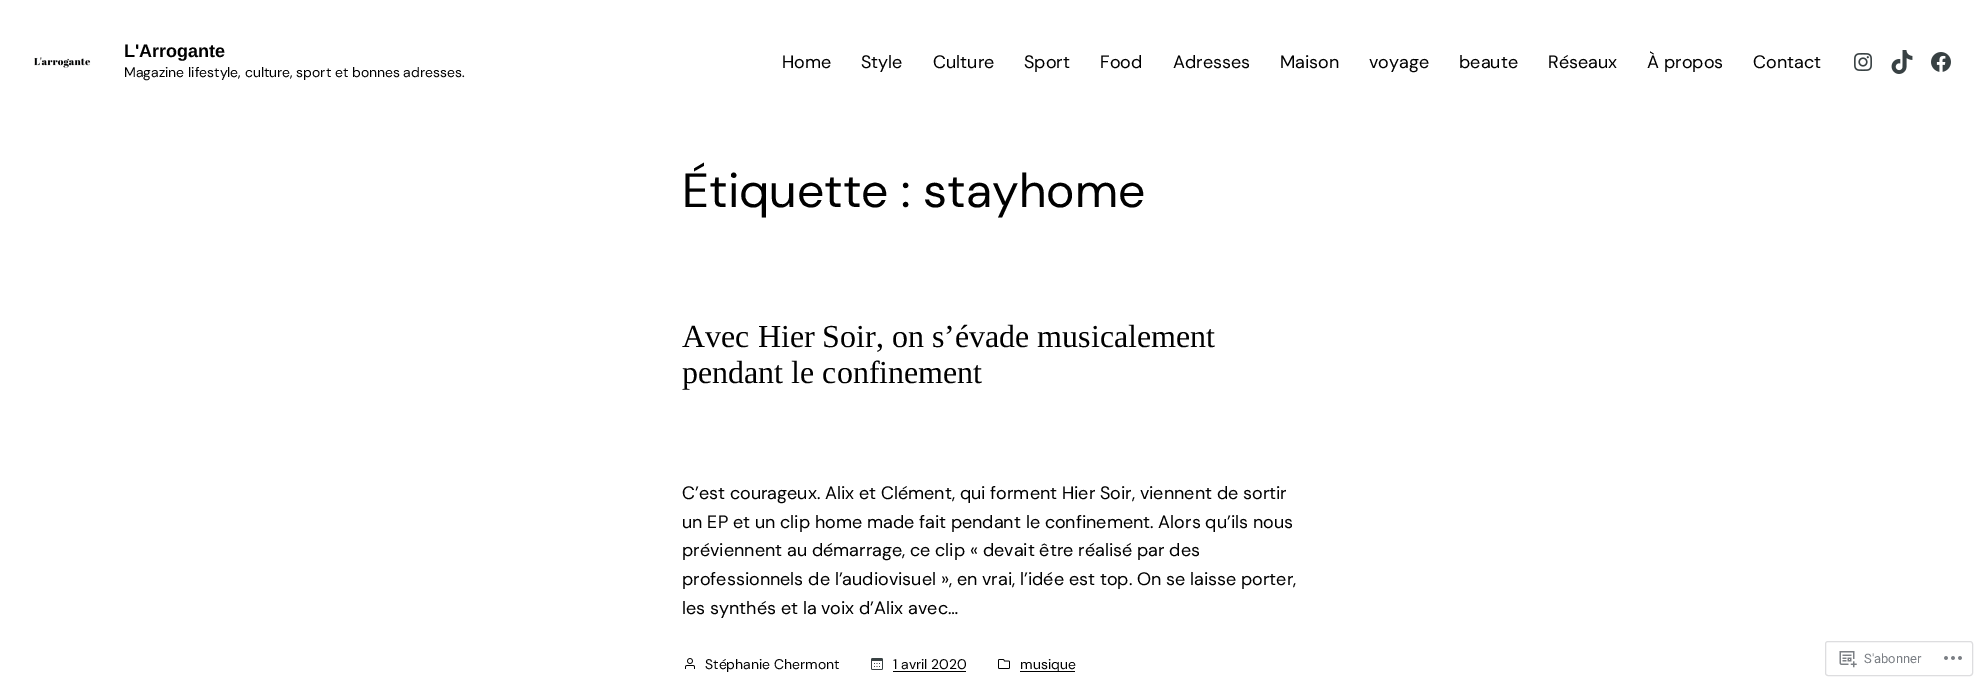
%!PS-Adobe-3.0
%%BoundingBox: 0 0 1983 686
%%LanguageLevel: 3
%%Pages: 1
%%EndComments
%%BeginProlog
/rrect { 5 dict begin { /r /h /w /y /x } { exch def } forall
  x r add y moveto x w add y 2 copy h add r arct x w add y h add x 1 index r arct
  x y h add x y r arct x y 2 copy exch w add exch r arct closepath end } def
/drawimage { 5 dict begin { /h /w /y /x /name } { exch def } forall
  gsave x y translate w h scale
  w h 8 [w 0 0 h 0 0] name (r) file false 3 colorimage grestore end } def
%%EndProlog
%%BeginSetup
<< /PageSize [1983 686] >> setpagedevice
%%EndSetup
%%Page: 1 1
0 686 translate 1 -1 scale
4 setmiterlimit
1 setgray
0 0 1983 686 rectfill
(images/1.raw) 34 57 57 11 drawimage
(images/2.raw) 1854 53 18 18 drawimage
(images/3.raw) 1891 50 22 24 drawimage
(images/4.raw) 1931 52 20 20 drawimage
(images/5.raw) 685 658 10 11 drawimage
(images/6.raw) 871 658 12 12 drawimage
0 setgray
893 671 73 1 rectfill
(images/7.raw) 998 659 12 10 drawimage
1020 671 55 1 rectfill
0.867 0.867 0.875 setrgbcolor
1825.5 641.5 147 34 2.5 rrect stroke
(images/8.raw) 1839 651 18 17 drawimage
(images/9.raw) 1944 656 18 4 drawimage
/LiberationSans-Bold [18 0 0 -18 0 0] selectfont
0 setgray
124 57 moveto (L'Arrogante) show
/DMSans-Regular [14 0 0 -14 0 0] selectfont
124 77 moveto (Magazine lifestyle, culture, sport et bonnes adresses.) show
/DMSans-Regular [18 0 0 -18 0 0] selectfont
782 68 moveto (Home) show
861 68 moveto (Style) show
933 68 moveto (Culture) show
1024 68 moveto (Sport) show
1100 68 moveto (Food) show
1173 68 moveto (Adresses) show
1280 68 moveto (Maison) show
1369 68 moveto (voyage) show
1459 68 moveto (beaute) show
1548 68 moveto (Réseaux) show
1647 68 moveto (À propos) show
1753 68 moveto (Contact) show
/DMSans-Regular [48 0 0 -48 0 0] selectfont
682 207 moveto (Étiquette : stayhome) show
/LiberationSerif-Regular [32 0 0 -32 0 0] selectfont
682 347 moveto (Avec Hier Soir, on s’évade musicalement) show
682 383 moveto (pendant le confinement) show
/DMSans-Regular [18 0 0 -18 0 0] selectfont
682 499 moveto (C’est courageux. Alix et Clément, qui forment Hier Soir, viennent de sortir) show
682 528 moveto (un EP et un clip home made fait pendant le confinement. Alors qu’ils nous) show
682 556 moveto (préviennent au démarrage, ce clip « devait être réalisé par des) show
682 585 moveto (professionnels de l’audiovisuel », en vrai, l’idée est top. On se laisse porter,) show
682 614 moveto (les synthés et la voix d’Alix avec…) show
/DMSans-Regular [14 0 0 -14 0 0] selectfont
705 669 moveto (Stéphanie Chermont) show
893 669 moveto (1 avril 2020) show
1020 669 moveto (musique) show
/Roboto-Regular [13 0 0 -13 0 0] selectfont
0.482 0.498 0.522 setrgbcolor
1864 663 moveto (S'abonner) show
showpage
%%EOF
